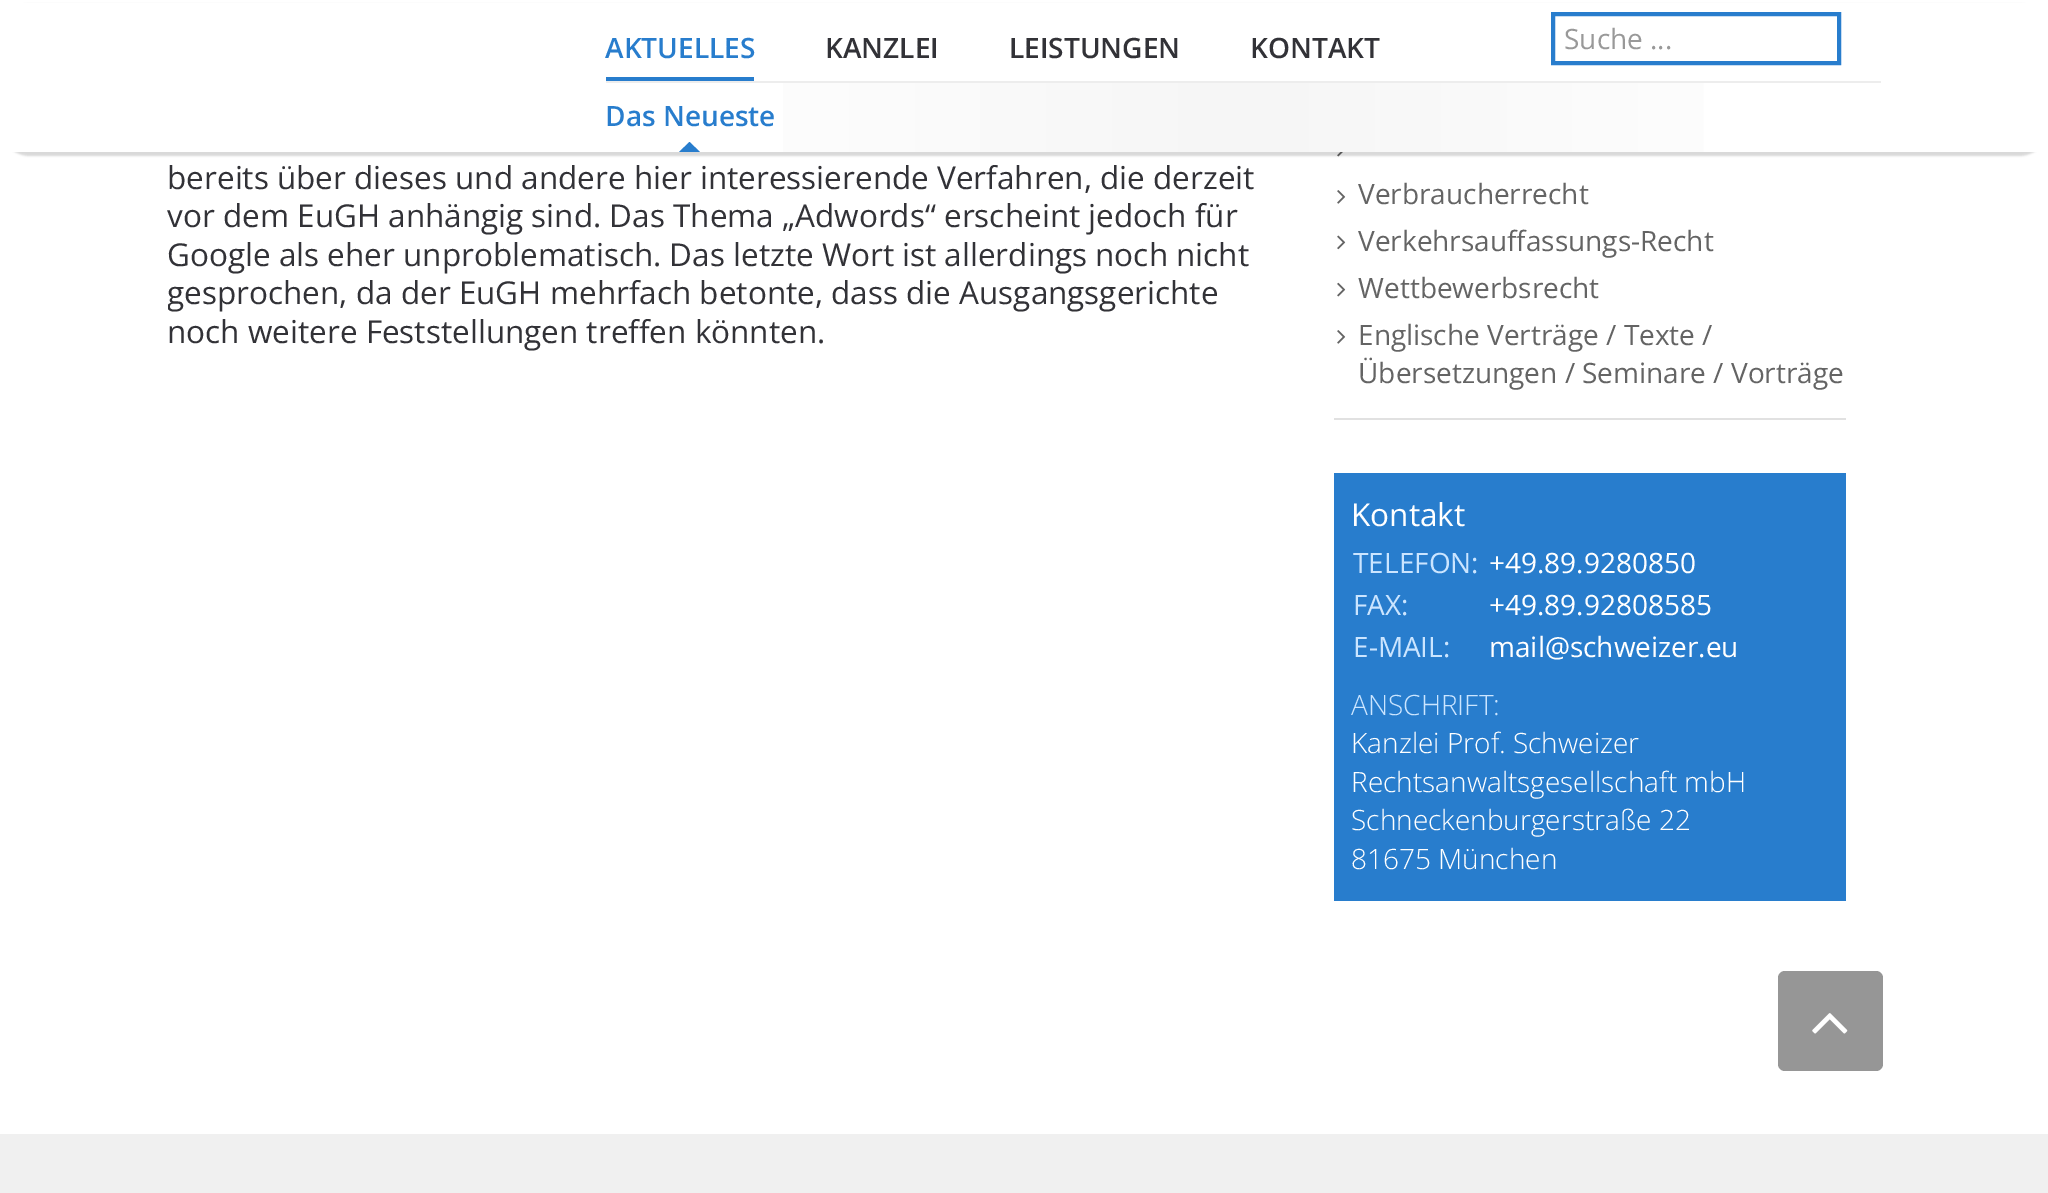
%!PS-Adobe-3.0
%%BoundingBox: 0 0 2048 1193
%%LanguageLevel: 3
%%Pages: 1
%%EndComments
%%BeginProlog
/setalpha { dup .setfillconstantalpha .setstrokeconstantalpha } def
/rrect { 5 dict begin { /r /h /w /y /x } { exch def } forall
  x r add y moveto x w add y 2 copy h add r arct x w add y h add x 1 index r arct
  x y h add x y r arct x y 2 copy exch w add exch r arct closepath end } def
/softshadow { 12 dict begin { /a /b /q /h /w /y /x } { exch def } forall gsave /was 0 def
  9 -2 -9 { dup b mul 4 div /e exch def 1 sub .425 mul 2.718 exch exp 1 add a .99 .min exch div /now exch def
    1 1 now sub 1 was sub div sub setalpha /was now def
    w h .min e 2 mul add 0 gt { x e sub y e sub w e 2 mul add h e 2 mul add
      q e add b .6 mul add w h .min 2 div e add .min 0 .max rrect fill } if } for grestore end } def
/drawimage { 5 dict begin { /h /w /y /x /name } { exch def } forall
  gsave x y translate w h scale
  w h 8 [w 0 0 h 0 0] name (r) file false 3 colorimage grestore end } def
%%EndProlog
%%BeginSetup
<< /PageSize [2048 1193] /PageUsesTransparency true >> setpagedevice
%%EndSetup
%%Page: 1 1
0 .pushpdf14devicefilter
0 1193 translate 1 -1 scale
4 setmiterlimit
1 setgray
0 0 2048 1193 rectfill
(images/1.raw) 1337 152 6 5 drawimage
0 setgray
0 4 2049 152 30 1 0.15 softshadow
1 setgray
0 3 2048 149 rectfill
0.157 0.49 0.804 setrgbcolor
606 77 148 4 rectfill
4 setlinewidth
1553 14 286 49 rectstroke
gsave newpath 783 83 moveto 1704 83 lineto 1704 152 lineto 783 152 lineto closepath clip newpath
<< /ShadingType 2 /ColorSpace /DeviceRGB /Coords [606 117 1881 117] /Extend [true true] /Function << /FunctionType 3 /Domain [0 1] /Functions [<< /FunctionType 2 /Domain [0 1] /C0 [1 1 1] /C1 [0.965 0.965 0.965] /N 1 >> << /FunctionType 2 /Domain [0 1] /C0 [0.965 0.965 0.965] /C1 [1 1 1] /N 1 >>] /Bounds [0.5] /Encode [0 1 0 1] >> >> shfill grestore
0.929 setgray
606 81 1275 2 rectfill
0.157 0.49 0.804 setrgbcolor
newpath 700 152 moveto 679 152 lineto 689.5 142 lineto closepath fill
0.882 setgray
1334 418 512 2 rectfill
(images/2.raw) 1337 190 9 14 drawimage
(images/3.raw) 1337 235 9 15 drawimage
(images/4.raw) 1337 282 9 15 drawimage
(images/2.raw) 1337 330 9 14 drawimage
0.157 0.49 0.804 setrgbcolor
1334 473 512 428 rectfill
0.588 setgray
1778 971 105 100 7 rrect fill
(images/5.raw) 1812 1013 36 21 drawimage
0.941 setgray
0 1134 2048 59 rectfill
/OpenSans-SemiBold [28 0 0 -28 0 0] selectfont
0.157 0.49 0.804 setrgbcolor
605 58 moveto (AKTUELLES) show
0.196 0.196 0.216 setrgbcolor
825 58 moveto (KANZLEI) show
1009 58 moveto (LEISTUNGEN) show
1250 58 moveto (KONTAKT) show
/OpenSans-Regular [28 0 0 -28 0 0] selectfont
0.6 setgray
1564 49 moveto (Suche ...) show
/OpenSans-SemiBold [28 0 0 -28 0 0] selectfont
0.157 0.49 0.804 setrgbcolor
605 126 moveto (Das Neueste) show
/OpenSans-Regular [31.5 0 0 -31.5 0 0] selectfont
0.196 0.196 0.216 setrgbcolor
167 189 moveto (bereits über dieses und andere hier interessierende Verfahren, die derzeit) show
167 227 moveto (vor dem EuGH anhängig sind. Das Thema „Adwords“ erscheint jedoch für) show
167 266 moveto (Google als eher unproblematisch. Das letzte Wort ist allerdings noch nicht) show
gsave
168 0 1131 406 rectclip
167 304 moveto (gesprochen, da der EuGH mehrfach betonte, dass die Ausgangsgerichte) show
grestore
167 343 moveto (noch weitere Feststellungen treffen könnten.) show
/OpenSans-Regular [28 0 0 -28 0 0] selectfont
0.392 setgray
1358 204 moveto (Verbraucherrecht) show
1358 251 moveto (Verkehrsauffassungs-Recht) show
1358 298 moveto (Wettbewerbsrecht) show
1358 345 moveto (Englische Verträge / Texte /) show
1358 383 moveto (Übersetzungen / Seminare / Vorträge) show
/OpenSans-Regular [31.5 0 0 -31.5 0 0] selectfont
1 setgray
1351 526 moveto (Kontakt) show
/OpenSans-Regular [28 0 0 -28 0 0] selectfont
0.796 0.898 1 setrgbcolor
1353 573 moveto (TELEFON:) show
1 setgray
1489 573 moveto (+49.89.9280850) show
0.796 0.898 1 setrgbcolor
1353 615 moveto (FAX:) show
1 setgray
1489 615 moveto (+49.89.92808585) show
0.796 0.898 1 setrgbcolor
1353 657 moveto (E-MAIL:) show
1 setgray
1489 657 moveto (mail@schweizer.eu) show
/OpenSans-Light [28 0 0 -28 0 0] selectfont
0.796 0.898 1 setrgbcolor
1351 715 moveto (ANSCHRIFT:) show
1 setgray
1351 753 moveto (Kanzlei Prof. Schweizer) show
1351 792 moveto (Rechtsanwaltsgesellschaft mbH) show
1351 830 moveto (Schneckenburgerstraße 22) show
1351 869 moveto (81675 München) show
.poppdf14devicefilter showpage
%%EOF
